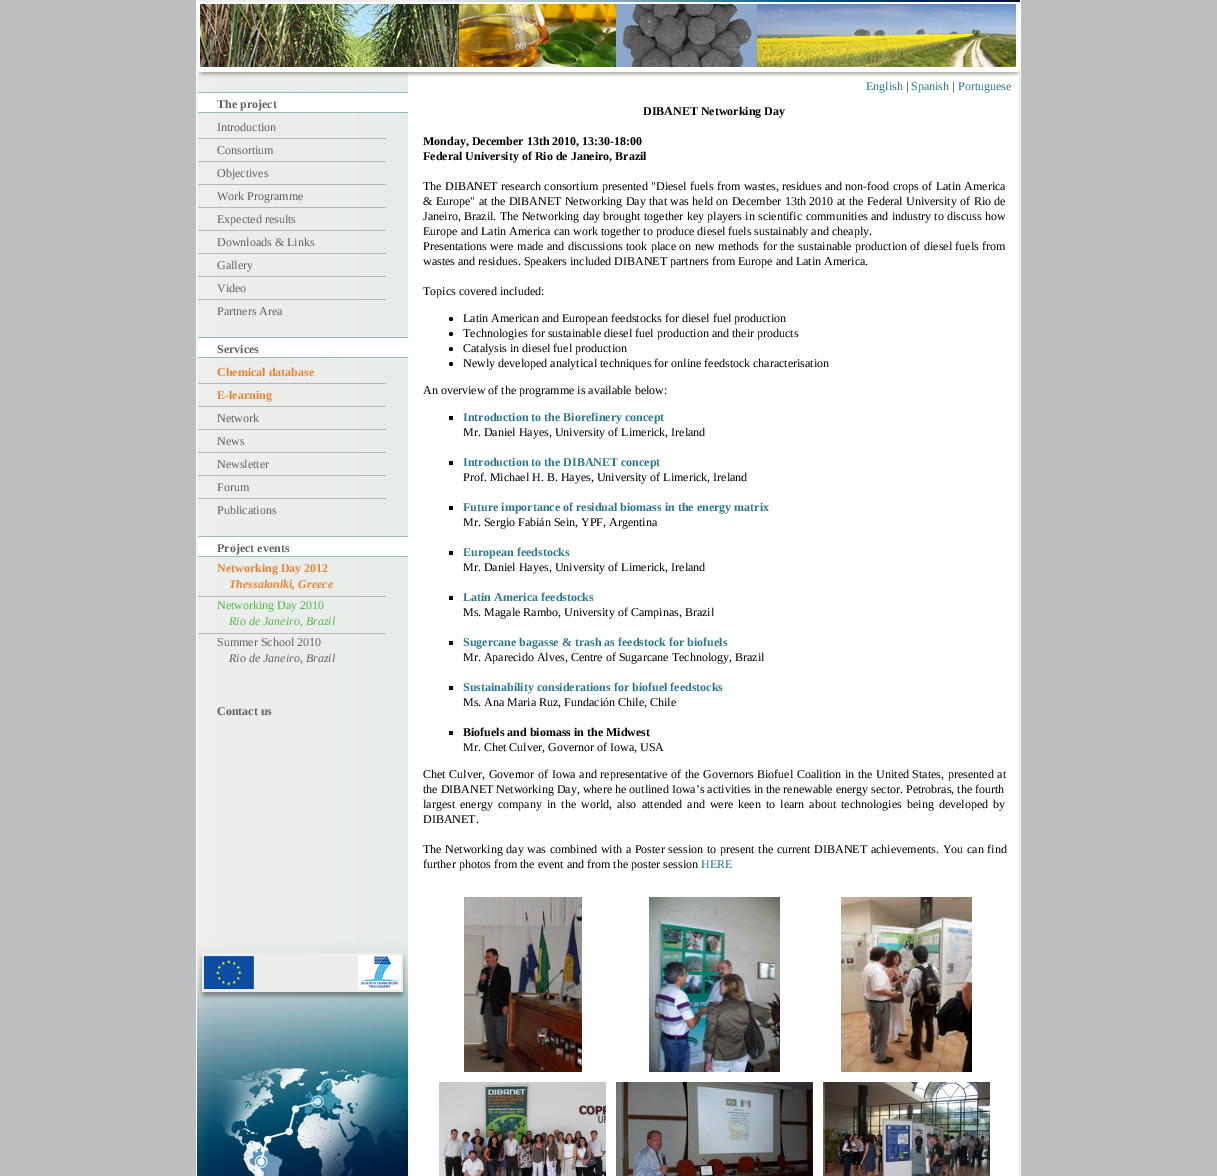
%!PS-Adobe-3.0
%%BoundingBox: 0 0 1217 1176
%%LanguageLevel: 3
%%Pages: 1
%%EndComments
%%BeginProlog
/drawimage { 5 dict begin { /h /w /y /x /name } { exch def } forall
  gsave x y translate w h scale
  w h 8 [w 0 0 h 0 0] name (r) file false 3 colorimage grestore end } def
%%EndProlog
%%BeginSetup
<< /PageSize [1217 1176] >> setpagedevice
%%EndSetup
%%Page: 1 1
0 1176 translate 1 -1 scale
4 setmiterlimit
0.737 0.745 0.753 setrgbcolor
0 0 1217 1176 rectfill
(images/1.raw) 196 0 825 1176 drawimage
(images/2.raw) 197 0 823 73 drawimage
(images/3.raw) 197 78 211 782 drawimage
(images/4.raw) 197 73 211 5 drawimage
(images/5.raw) 198 92 210 21 drawimage
(images/6.raw) 198 138 188 1 drawimage
(images/6.raw) 198 161 188 1 drawimage
(images/6.raw) 198 184 188 1 drawimage
(images/6.raw) 198 207 188 1 drawimage
(images/6.raw) 198 230 188 1 drawimage
(images/6.raw) 198 253 188 1 drawimage
(images/6.raw) 198 276 188 1 drawimage
(images/6.raw) 198 299 188 1 drawimage
(images/5.raw) 198 337 210 21 drawimage
(images/6.raw) 198 383 188 1 drawimage
(images/6.raw) 198 406 188 1 drawimage
(images/6.raw) 198 429 188 1 drawimage
(images/6.raw) 198 452 188 1 drawimage
(images/6.raw) 198 475 188 1 drawimage
(images/6.raw) 198 498 188 1 drawimage
(images/5.raw) 198 536 210 21 drawimage
(images/6.raw) 198 596 188 1 drawimage
(images/6.raw) 198 633 188 1 drawimage
(images/7.raw) 408 73 612 4 drawimage
0 setgray
newpath 451 319 2 0 360 arc closepath fill
newpath 451 334 2 0 360 arc closepath fill
newpath 451 349 2 0 360 arc closepath fill
newpath 451 364 2 0 360 arc closepath fill
449 416 4 4 rectfill
449 461 4 4 rectfill
449 506 4 4 rectfill
449 551 4 4 rectfill
449 596 4 4 rectfill
449 641 4 4 rectfill
449 686 4 4 rectfill
449 731 4 4 rectfill
(images/8.raw) 464 897 118 175 drawimage
(images/9.raw) 649 897 131 175 drawimage
(images/10.raw) 841 897 131 175 drawimage
(images/11.raw) 439 1082 167 94 drawimage
(images/12.raw) 616 1082 197 94 drawimage
(images/13.raw) 823 1082 167 94 drawimage
(images/14.raw) 197 860 211 83 drawimage
(images/15.raw) 197 943 211 233 drawimage
/LiberationSerif-Bold [12 0 0 -12 0 0] selectfont
0.384 setgray
217 108 moveto (The project) show
/LiberationSerif-Regular [12 0 0 -12 0 0] selectfont
217 131 moveto (Introduction) show
217 154 moveto (Consortium) show
217 177 moveto (Objectives) show
217 200 moveto (Work Programme) show
217 223 moveto (Expected results) show
217 246 moveto (Downloads & Links) show
217 269 moveto (Gallery) show
217 292 moveto (Video) show
217 315 moveto (Partners Area) show
/LiberationSerif-Bold [12 0 0 -12 0 0] selectfont
217 353 moveto (Services) show
0.906 0.518 0.2 setrgbcolor
217 376 moveto (Chemical database) show
217 399 moveto (E-learning) show
/LiberationSerif-Regular [12 0 0 -12 0 0] selectfont
0.384 setgray
217 422 moveto (Network) show
217 445 moveto (News) show
217 468 moveto (Newsletter) show
217 491 moveto (Forum) show
217 514 moveto (Publications) show
/LiberationSerif-Bold [12 0 0 -12 0 0] selectfont
217 552 moveto (Project events) show
0.906 0.518 0.2 setrgbcolor
217 572 moveto (Networking Day 2012) show
/LiberationSerif-BoldItalic [12 0 0 -12 0 0] selectfont
229 588 moveto (Thessaloniki, Greece) show
/LiberationSerif-Regular [12 0 0 -12 0 0] selectfont
0.31 0.725 0.282 setrgbcolor
217 609 moveto (Networking Day 2010) show
/LiberationSerif-Italic [12 0 0 -12 0 0] selectfont
229 625 moveto (Rio de Janeiro, Brazil) show
/LiberationSerif-Regular [12 0 0 -12 0 0] selectfont
0.384 setgray
217 646 moveto (Summer School 2010) show
/LiberationSerif-Italic [12 0 0 -12 0 0] selectfont
229 662 moveto (Rio de Janeiro, Brazil) show
/LiberationSerif-Bold [12 0 0 -12 0 0] selectfont
217 715 moveto (Contact us) show
/LiberationSerif-Regular [12 0 0 -12 0 0] selectfont
0.18 0.467 0.541 setrgbcolor
866 90 moveto (English) show
0 setgray
906 90 moveto (|) show
0.18 0.467 0.541 setrgbcolor
911 90 moveto (Spanish) show
0 setgray
952 90 moveto (|) show
0.18 0.467 0.541 setrgbcolor
958 90 moveto (Portuguese) show
/LiberationSerif-Bold [12 0 0 -12 0 0] selectfont
0 setgray
643 115 moveto (DIBANET Networking Day) show
423 145 moveto (Monday, December 13th 2010, 13:30-18:00) show
423 160 moveto (Federal University of Rio de Janeiro, Brazil) show
/LiberationSerif-Regular [12 0 0 -12 0 0] selectfont
423 190 moveto 0.4 0 32 (The DIBANET research consortium presented "Diesel fuels from wastes, residues and non-food crops of Latin America) widthshow
423 205 moveto 0.4 0 32 (& Europe" at the DIBANET Networking Day that was held on December 13th 2010 at the Federal University of Rio de) widthshow
423 220 moveto 0.4 0 32 (Janeiro, Brazil. The Networking day brought together key players in scientific communities and industry to discuss how) widthshow
423 235 moveto (Europe and Latin America can work together to produce diesel fuels sustainably and cheaply.) show
423 250 moveto 0.5 0 32 (Presentations were made and discussions took place on new methods for the sustainable production of diesel fuels from) widthshow
423 265 moveto (wastes and residues. Speakers included DIBANET partners from Europe and Latin America.) show
423 295 moveto (Topics covered included:) show
463 322 moveto (Latin American and European feedstocks for diesel fuel production) show
463 337 moveto (Technologies for sustainable diesel fuel production and their products) show
463 352 moveto (Catalysis in diesel fuel production) show
463 367 moveto (Newly developed analytical techniques for online feedstock characterisation) show
423 394 moveto (An overview of the programme is available below:) show
/LiberationSerif-Bold [12 0 0 -12 0 0] selectfont
0.18 0.467 0.541 setrgbcolor
463 421 moveto (Introduction to the Biorefinery concept) show
/LiberationSerif-Regular [12 0 0 -12 0 0] selectfont
0 setgray
463 436 moveto (Mr. Daniel Hayes, University of Limerick, Ireland) show
/LiberationSerif-Bold [12 0 0 -12 0 0] selectfont
0.18 0.467 0.541 setrgbcolor
463 466 moveto (Introduction to the DIBANET concept) show
/LiberationSerif-Regular [12 0 0 -12 0 0] selectfont
0 setgray
463 481 moveto (Prof. Michael H. B. Hayes, University of Limerick, Ireland) show
/LiberationSerif-Bold [12 0 0 -12 0 0] selectfont
0.18 0.467 0.541 setrgbcolor
463 511 moveto (Future importance of residual biomass in the energy matrix) show
/LiberationSerif-Regular [12 0 0 -12 0 0] selectfont
0 setgray
463 526 moveto (Mr. Sergio Fabián Sein, YPF, Argentina) show
/LiberationSerif-Bold [12 0 0 -12 0 0] selectfont
0.18 0.467 0.541 setrgbcolor
463 556 moveto (European feedstocks) show
/LiberationSerif-Regular [12 0 0 -12 0 0] selectfont
0 setgray
463 571 moveto (Mr. Daniel Hayes, University of Limerick, Ireland) show
/LiberationSerif-Bold [12 0 0 -12 0 0] selectfont
0.18 0.467 0.541 setrgbcolor
463 601 moveto (Latin America feedstocks) show
/LiberationSerif-Regular [12 0 0 -12 0 0] selectfont
0 setgray
463 616 moveto (Ms. Magale Rambo, University of Campinas, Brazil) show
/LiberationSerif-Bold [12 0 0 -12 0 0] selectfont
0.18 0.467 0.541 setrgbcolor
463 646 moveto (Sugercane bagasse & trash as feedstock for biofuels) show
/LiberationSerif-Regular [12 0 0 -12 0 0] selectfont
0 setgray
463 661 moveto (Mr. Aparecido Alves, Centre of Sugarcane Technology, Brazil) show
/LiberationSerif-Bold [12 0 0 -12 0 0] selectfont
0.18 0.467 0.541 setrgbcolor
463 691 moveto (Sustainability considerations for biofuel feedstocks) show
/LiberationSerif-Regular [12 0 0 -12 0 0] selectfont
0 setgray
463 706 moveto (Ms. Ana Maria Ruz, Fundación Chile, Chile) show
/LiberationSerif-Bold [12 0 0 -12 0 0] selectfont
463 736 moveto (Biofuels and biomass in the Midwest) show
/LiberationSerif-Regular [12 0 0 -12 0 0] selectfont
463 751 moveto (Mr. Chet Culver, Governor of Iowa, USA) show
423 778 moveto 0.6 0 32 (Chet Culver, Governor of Iowa and representative of the Governors Biofuel Coalition in the United States, presented at) widthshow
423 793 moveto (the DIBANET Networking Day, where he outlined Iowa’s activities in the renewable energy sector. Petrobras, the fourth) show
423 808 moveto 2.1 0 32 (largest energy company in the world, also attended and were keen to learn about technologies being developed by) widthshow
423 823 moveto (DIBANET.) show
423 853 moveto 0.7 0 32 (The Networking day was combined with a Poster session to present the current DIBANET achievements. You can find) widthshow
423 868 moveto (further photos from the event and from the poster session) show
0.18 0.467 0.541 setrgbcolor
701 868 moveto (HERE) show
showpage
%%EOF
